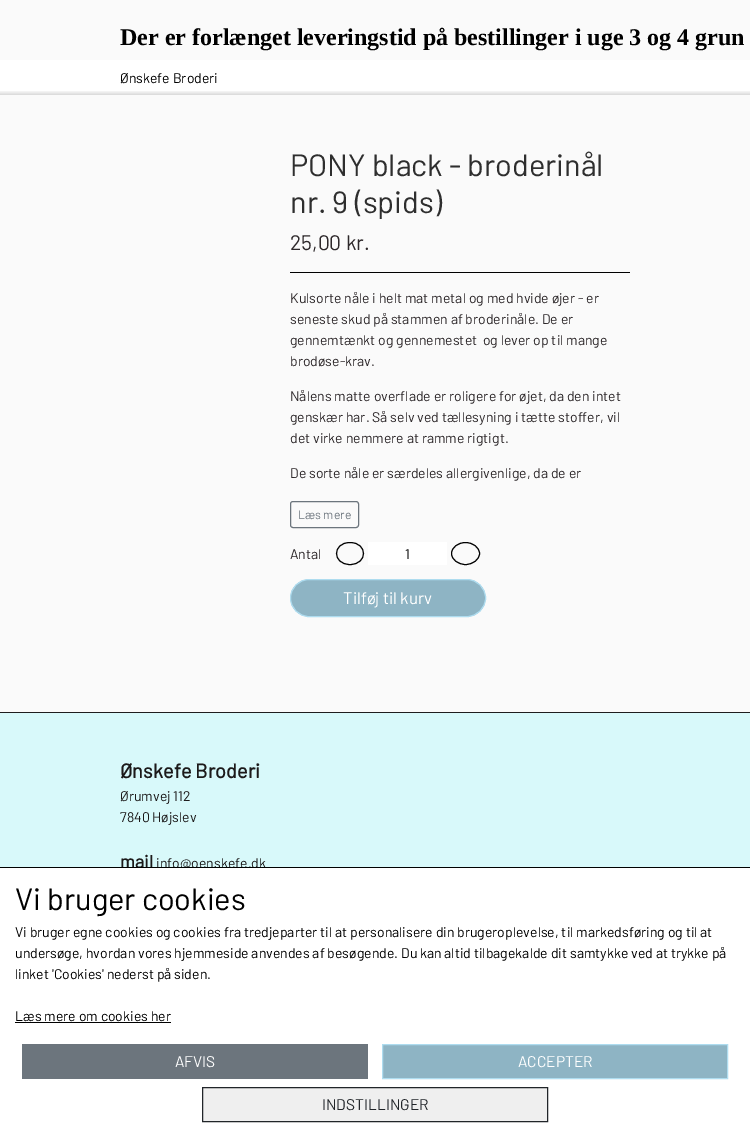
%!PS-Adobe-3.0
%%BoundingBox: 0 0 750 1129
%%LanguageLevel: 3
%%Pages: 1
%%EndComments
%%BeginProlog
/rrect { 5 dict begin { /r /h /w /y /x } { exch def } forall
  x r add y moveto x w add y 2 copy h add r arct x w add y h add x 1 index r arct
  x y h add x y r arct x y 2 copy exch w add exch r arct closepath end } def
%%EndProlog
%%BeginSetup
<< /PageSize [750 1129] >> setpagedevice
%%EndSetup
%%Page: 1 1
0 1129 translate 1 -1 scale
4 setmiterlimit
0.847 0.976 0.98 setrgbcolor
0 0 750 1129 rectfill
0.98 setgray
0 0 750 60 rectfill
1 setgray
0 60 750 30 rectfill
gsave newpath 0 90 moveto 750 90 lineto 750 95 lineto 0 95 lineto closepath clip newpath
<< /ShadingType 2 /ColorSpace /DeviceRGB /Coords [375 95 375 90] /Extend [true true] /Function << /FunctionType 2 /Domain [0 1] /C0 [0.851 0.851 0.851] /C1 [1 1 1] /N 1 >> >> shfill grestore
0.98 setgray
0 95 750 617 rectfill
0 setgray
290 272 340 1 rectfill
0.424 0.459 0.49 setrgbcolor
290.5 501.5 68 26 2.5 rrect stroke
0 setgray
newpath 350 542.5 moveto 368 542.5 368 564.5 350 564.5 curveto 332 564.5 332 542.5 350 542.5 curveto closepath stroke
1 setgray
368 542 79 23 rectfill
0 setgray
newpath 465.5 542.5 moveto 473 542.5 479.5 547.5 479.5 553.5 curveto 479.5 559.5 473 564.5 465.5 564.5 curveto 458 564.5 451.5 559.5 451.5 553.5 curveto 451.5 547.5 458 542.5 465.5 542.5 curveto closepath stroke
0.557 0.706 0.769 setrgbcolor
290.5 579.5 195 37 18.5 rrect gsave fill grestore
0.682 0.863 0.937 setrgbcolor
stroke
0.118 setgray
0 712 750 1 rectfill
/LiberationSerif-Bold [24 0 0 -24 0 0] selectfont
0 setgray
120 45 moveto (Der er forlænget leveringstid på bestillinger i uge 3 og 4 grun) show
/Barlow-Regular [14 0 0 -14 0 0] selectfont
120 83 moveto (Ønskefe Broderi) show
/Barlow-Regular [30.75 0 0 -30.75 0 0] selectfont
0.18 setgray
290 176 moveto (PONY black - broderinål) show
290 213 moveto (nr. 9 \(spids\)) show
/Barlow-Regular [21 0 0 -21 0 0] selectfont
0.176 0.157 0.165 setrgbcolor
290 250 moveto (25,00 kr.) show
/Barlow-Regular [14 0 0 -14 0 0] selectfont
290 303 moveto (Kulsorte nåle i helt mat metal og med hvide øjer - er) show
290 324 moveto (seneste skud på stammen af broderinåle. De er) show
290 345 moveto (gennemtænkt og gennemestet  og lever op til mange) show
290 366 moveto (brodøse-krav.) show
290 401 moveto (Nålens matte overflade er roligere for øjet, da den intet) show
290 422 moveto (genskær har. Så selv ved tællesyning i tætte stoffer, vil) show
290 443 moveto (det virke nemmere at ramme rigtigt.) show
290 478 moveto (De sorte nåle er særdeles allergivenlige, da de er) show
/Barlow-Regular [12.25 0 0 -12.25 0 0] selectfont
0.424 0.459 0.49 setrgbcolor
298 519 moveto (Læs mere) show
/Barlow-Regular [14 0 0 -14 0 0] selectfont
0.176 0.157 0.165 setrgbcolor
290 559 moveto (Antal) show
0 setgray
405 559 moveto (1) show
/Barlow-Regular [16.75 0 0 -16.75 0 0] selectfont
1 setgray
343 604 moveto (Tilføj til kurv) show
/Barlow-Bold [20 0 0 -20 0 0] selectfont
0.11 0.102 0.102 setrgbcolor
120 778 moveto (Ønskefe Broderi) show
/Barlow-Regular [14 0 0 -14 0 0] selectfont
120 801 moveto (Ørumvej 112) show
120 822 moveto (7840 Højslev) show
/Barlow-Bold [18 0 0 -18 0 0] selectfont
120 868 moveto (mail) show
/Barlow-Regular [14 0 0 -14 0 0] selectfont
156 868 moveto (info@oenskefe.dk) show
1 setgray
0 868 750 261 rectfill
0 setgray
0 867 750 1 rectfill
/Barlow-Regular [30.75 0 0 -30.75 0 0] selectfont
15 910 moveto (Vi bruger cookies) show
/Barlow-Regular [14 0 0 -14 0 0] selectfont
15 937 moveto (Vi bruger egne cookies og cookies fra tredjeparter til at personalisere din brugeroplevelse, til markedsføring og til at) show
15 958 moveto (undersøge, hvordan vores hjemmeside anvendes af besøgende. Du kan altid tilbagekalde dit samtykke ved at trykke på) show
15 979 moveto (linket 'Cookies' nederst på siden.) show
15 1021 moveto (Læs mere om cookies her) show
15 1022 156 1 rectfill
0.424 0.459 0.49 setrgbcolor
22 1044 346 35 rectfill
/Barlow-Regular [15.5 0 0 -15.5 0 0] selectfont
1 setgray
175 1067 moveto (AFVIS) show
0.557 0.706 0.769 setrgbcolor
newpath 382.5 1044.5 moveto 727.5 1044.5 lineto 727.5 1078.5 lineto 382.5 1078.5 lineto closepath gsave fill grestore
0.682 0.863 0.937 setrgbcolor
stroke
1 setgray
518 1067 moveto (ACCEPTER) show
0.937 setgray
newpath 202.5 1087.5 moveto 547.5 1087.5 lineto 547.5 1121.5 lineto 202.5 1121.5 lineto closepath gsave fill grestore
0.129 0.145 0.161 setrgbcolor
stroke
322 1110 moveto (INDSTILLINGER) show
showpage
%%EOF
